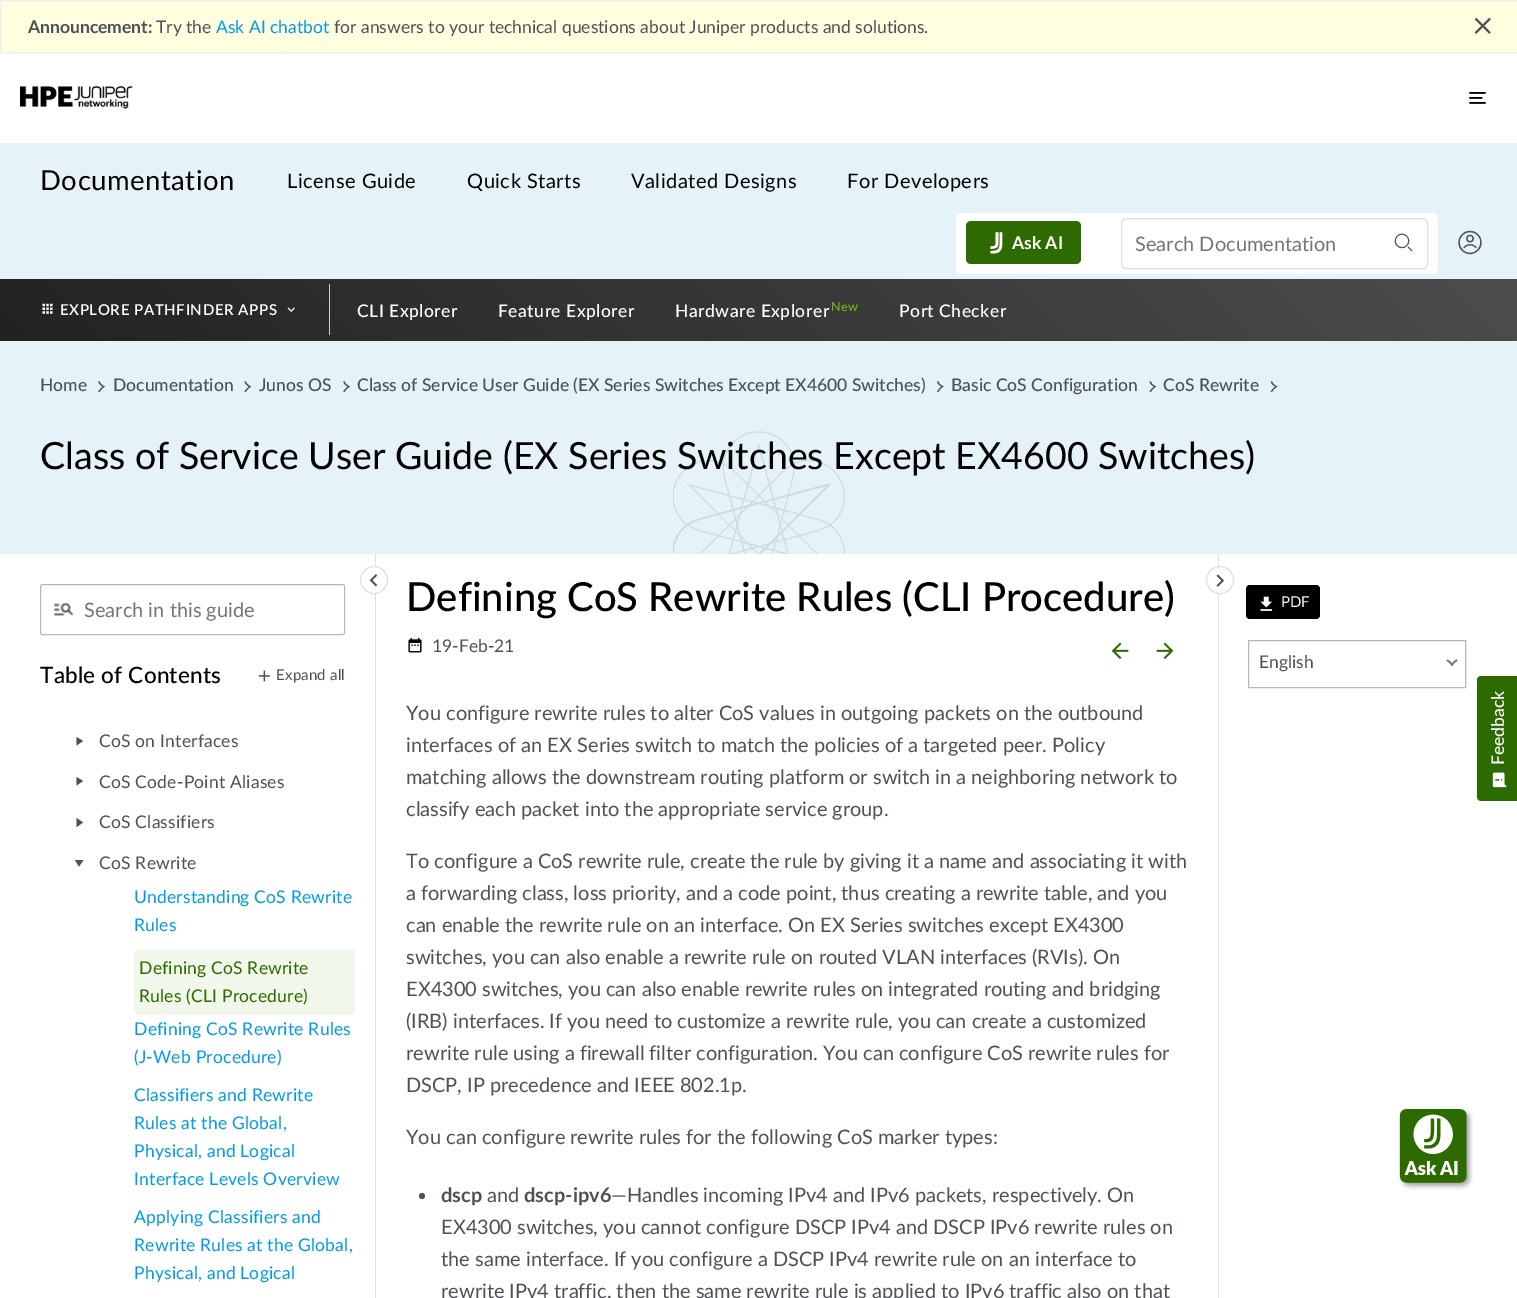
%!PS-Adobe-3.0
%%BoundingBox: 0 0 1517 1298
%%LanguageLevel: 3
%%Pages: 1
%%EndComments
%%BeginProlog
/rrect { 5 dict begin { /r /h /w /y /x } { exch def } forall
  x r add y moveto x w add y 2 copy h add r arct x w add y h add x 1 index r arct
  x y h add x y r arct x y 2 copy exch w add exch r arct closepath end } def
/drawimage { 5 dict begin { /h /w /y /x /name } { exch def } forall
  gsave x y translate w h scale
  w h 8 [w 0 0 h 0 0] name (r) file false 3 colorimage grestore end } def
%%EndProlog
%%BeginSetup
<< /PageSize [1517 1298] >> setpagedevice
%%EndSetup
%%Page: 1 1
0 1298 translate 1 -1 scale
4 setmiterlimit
1 setgray
0 0 1517 1298 rectfill
1 1 0.878 setrgbcolor
newpath 0.5 0.5 moveto 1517.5 0.5 lineto 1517.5 52.5 lineto 0.5 52.5 lineto closepath gsave fill grestore
0.933 setgray
stroke
(images/1.raw) 1474 17 17 17 drawimage
(images/2.raw) 20 86 113 23 drawimage
(images/3.raw) 1469 92 17 12 drawimage
0.898 0.949 0.973 setrgbcolor
0 143 1517 136 rectfill
1 setgray
956 213 482 61 5 rrect fill
0.176 0.416 0 setrgbcolor
966 221 115 43 5 rrect fill
(images/4.raw) 990 232 13 22 drawimage
0.867 setgray
1121.5 218.5 306 50 4.5 rrect stroke
(images/5.raw) 1394 233 19 19 drawimage
(images/6.raw) 1458 230 24 25 drawimage
gsave newpath 0 279 moveto 1517 279 lineto 1517 341 lineto 0 341 lineto closepath clip newpath
<< /ShadingType 2 /ColorSpace /DeviceRGB /Coords [364 705 1154 -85] /Extend [true true] /Function << /FunctionType 2 /Domain [0 1] /C0 [0.133 0.133 0.133] /C1 [0.302 0.302 0.302] /N 1 >> >> shfill grestore
(images/7.raw) 42 303 11 11 drawimage
(images/8.raw) 287 307 8 5 drawimage
0.8 setgray
329 284 1 51 rectfill
0.898 0.949 0.973 setrgbcolor
0 341 1517 213 rectfill
(images/9.raw) 673 431 172 123 drawimage
(images/10.raw) 98 381 8 12 drawimage
(images/11.raw) 244 381 8 12 drawimage
(images/10.raw) 343 381 8 12 drawimage
(images/12.raw) 936 381 8 12 drawimage
(images/11.raw) 1149 381 8 12 drawimage
(images/13.raw) 1270 381 8 12 drawimage
0.878 setgray
375 554 1 744 rectfill
1 setgray
newpath 374 580 13.5 0 360 arc closepath gsave fill grestore
0.878 setgray
stroke
(images/14.raw) 369 574 9 13 drawimage
0.71 0.722 0.725 setrgbcolor
40.5 584.5 304 50 2 rrect stroke
(images/15.raw) 53 602 21 14 drawimage
(images/16.raw) 258 670 12 12 drawimage
0.302 0.322 0.349 setrgbcolor
newpath 76.5 737 moveto 83 741 lineto 76.5 745.5 lineto closepath fill
newpath 76.5 777 moveto 83 781 lineto 76.5 785.5 lineto closepath fill
newpath 76.5 818 moveto 83 822.5 lineto 76.5 827 lineto closepath fill
newpath 83.5 860 moveto 79 866.5 lineto 75 860 lineto closepath fill
0.949 0.969 0.922 setrgbcolor
134 949 221 66 5 rrect fill
(images/17.raw) 408 637 14 16 drawimage
(images/18.raw) 1111 642 18 17 drawimage
(images/19.raw) 1156 642 18 17 drawimage
0.302 0.322 0.349 setrgbcolor
newpath 422 1196 3 0 360 arc closepath fill
0.878 setgray
1218 554 1 744 rectfill
1 setgray
newpath 1220 580 13.5 0 360 arc closepath gsave fill grestore
0.878 setgray
stroke
(images/20.raw) 1216 574 9 13 drawimage
0 setgray
1246 585 74 34 4 rrect fill
(images/21.raw) 1260 596 13 15 drawimage
0.71 0.722 0.725 setrgbcolor
1248.5 640.5 217 47 rectstroke
(images/22.raw) 1446 658 12 9 drawimage
(images/23.raw) 1398 1107 75 83 drawimage
0.176 0.416 0 setrgbcolor
newpath 1477 797 moveto 1477 680 lineto 1477 678 1479 676 1481 676 curveto 1516 676 lineto 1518 676 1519 678 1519 680 curveto 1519 797 lineto 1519 799 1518 801 1516 801 curveto 1481 801 lineto 1479 801 1477 799 1477 797 curveto closepath fill
(images/24.raw) 1492 772 15 16 drawimage
/Lato-Bold [17.5 0 0 -17.5 0 0] selectfont
0.302 0.322 0.349 setrgbcolor
28 33 moveto (Announcement:) show
/Lato-Regular [17.5 0 0 -17.5 0 0] selectfont
156 33 moveto (Try the) show
0.012 0.608 0.898 setrgbcolor
216 33 moveto (Ask AI chatbot) show
0.302 0.322 0.349 setrgbcolor
334 33 moveto (for answers to your technical questions about Juniper products and solutions.) show
/Lato-Regular [27.5 0 0 -27.5 0 0] selectfont
0 setgray
40 190 moveto 0.5 0 (Documentation) ashow
/Lato-Regular [20 0 0 -20 0 0] selectfont
287 188 moveto 0.5 0 (License Guide) ashow
467 188 moveto 0.5 0 (Quick Starts) ashow
631 188 moveto 0.5 0 (Validated Designs) ashow
847 188 moveto 0.5 0 (For Developers) ashow
/Lato-Bold [17.5 0 0 -17.5 0 0] selectfont
1 setgray
1012 249 moveto (Ask AI) show
/Lato-Regular [20 0 0 -20 0 0] selectfont
0.459 setgray
1135 251 moveto (Search Documentation) show
/Lato-SemiBold [15 0 0 -15 0 0] selectfont
1 setgray
60 315 moveto 0.6 0 (EXPLORE PATHFINDER APPS) ashow
/Lato-Medium [17.5 0 0 -17.5 0 0] selectfont
357 317 moveto 0.5 0 (CLI Explorer) ashow
498 317 moveto 0.5 0 (Feature Explorer) ashow
675 317 moveto 0.5 0 (Hardware Explorer) ashow
/Lato-SemiBold [12.5 0 0 -12.5 0 0] selectfont
0.451 0.667 0.118 setrgbcolor
831 311 moveto 0.5 0 (New) ashow
/Lato-Medium [17.5 0 0 -17.5 0 0] selectfont
1 setgray
899 317 moveto 0.5 0 (Port Checker) ashow
0.302 0.322 0.349 setrgbcolor
40 391 moveto (Home) show
113 391 moveto (Documentation) show
259 391 moveto (Junos OS) show
357 391 moveto (Class of Service User Guide \(EX Series Switches Except EX4600 Switches\)) show
951 391 moveto (Basic CoS Configuration) show
1163 391 moveto (CoS Rewrite) show
/Lato-Regular [37.5 0 0 -37.5 0 0] selectfont
0 setgray
40 469 moveto (Class of Service User Guide \(EX Series Switches Except EX4600 Switches\)) show
/Lato-Regular [20 0 0 -20 0 0] selectfont
0.459 setgray
84 617 moveto (Search in this guide) show
/Lato-Medium [22.5 0 0 -22.5 0 0] selectfont
0 setgray
40 683 moveto 0.2 0 (Table of Contents) ashow
/Lato-Regular [15 0 0 -15 0 0] selectfont
0.302 0.322 0.349 setrgbcolor
276 680 moveto 0.2 0 (Expand all) ashow
/Lato-Regular [17.5 0 0 -17.5 0 0] selectfont
99 747 moveto 0.2 0 (CoS on Interfaces) ashow
99 788 moveto 0.2 0 (CoS Code-Point Aliases) ashow
99 828 moveto 0.2 0 (CoS Classifiers) ashow
99 869 moveto 0.2 0 (CoS Rewrite) ashow
0.012 0.608 0.898 setrgbcolor
134 903 moveto 0.2 0 (Understanding CoS Rewrite) ashow
134 931 moveto 0.2 0 (Rules) ashow
0.176 0.416 0 setrgbcolor
139 974 moveto 0.2 0 (Defining CoS Rewrite) ashow
139 1002 moveto 0.2 0 (Rules \(CLI Procedure\)) ashow
0.012 0.608 0.898 setrgbcolor
134 1035 moveto 0.2 0 (Defining CoS Rewrite Rules) ashow
134 1063 moveto 0.2 0 (\(J-Web Procedure\)) ashow
134 1101 moveto 0.2 0 (Classifiers and Rewrite) ashow
134 1129 moveto 0.2 0 (Rules at the Global,) ashow
134 1157 moveto 0.2 0 (Physical, and Logical) ashow
134 1185 moveto 0.2 0 (Interface Levels Overview) ashow
134 1223 moveto 0.2 0 (Applying Classifiers and) ashow
134 1251 moveto 0.2 0 (Rewrite Rules at the Global,) ashow
134 1279 moveto 0.2 0 (Physical, and Logical) ashow
/Lato-Medium [40 0 0 -40 0 0] selectfont
0 setgray
406 611 moveto (Defining CoS Rewrite Rules \(CLI Procedure\)) show
/Lato-Regular [17.5 0 0 -17.5 0 0] selectfont
0.302 0.322 0.349 setrgbcolor
432 652 moveto (19-Feb-21) show
/Lato-Regular [20 0 0 -20 0 0] selectfont
406 720 moveto (You configure rewrite rules to alter CoS values in outgoing packets on the outbound) show
406 752 moveto (interfaces of an EX Series switch to match the policies of a targeted peer. Policy) show
406 784 moveto (matching allows the downstream routing platform or switch in a neighboring network to) show
406 816 moveto (classify each packet into the appropriate service group.) show
406 868 moveto (To configure a CoS rewrite rule, create the rule by giving it a name and associating it with) show
406 900 moveto (a forwarding class, loss priority, and a code point, thus creating a rewrite table, and you) show
406 932 moveto (can enable the rewrite rule on an interface. On EX Series switches except EX4300) show
406 964 moveto (switches, you can also enable a rewrite rule on routed VLAN interfaces \(RVIs\). On) show
406 996 moveto (EX4300 switches, you can also enable rewrite rules on integrated routing and bridging) show
406 1028 moveto (\(IRB\) interfaces. If you need to customize a rewrite rule, you can create a customized) show
406 1060 moveto (rewrite rule using a firewall filter configuration. You can configure CoS rewrite rules for) show
406 1092 moveto (DSCP, IP precedence and IEEE 802.1p.) show
406 1144 moveto (You can configure rewrite rules for the following CoS marker types:) show
/Lato-Bold [20 0 0 -20 0 0] selectfont
441 1202 moveto (dscp) show
/Lato-Regular [20 0 0 -20 0 0] selectfont
487 1202 moveto (and) show
/Lato-Bold [20 0 0 -20 0 0] selectfont
524 1202 moveto (dscp-ipv6) show
/Lato-Regular [20 0 0 -20 0 0] selectfont
611 1202 moveto (—Handles incoming IPv4 and IPv6 packets, respectively. On) show
441 1234 moveto (EX4300 switches, you cannot configure DSCP IPv4 and DSCP IPv6 rewrite rules on) show
441 1266 moveto (the same interface. If you configure a DSCP IPv4 rewrite rule on an interface to) show
441 1298 moveto (rewrite IPv4 traffic, then the same rewrite rule is applied to IPv6 traffic also on that) show
/Lato-Regular [15 0 0 -15 0 0] selectfont
1 setgray
1281 607 moveto (PDF) show
/Lato-Regular [17.5 0 0 -17.5 0 0] selectfont
0.302 0.322 0.349 setrgbcolor
1259 668 moveto (English) show
/Lato-Medium [17.5 0 0 -17.5 0 0] selectfont
1 setgray
gsave 1504 765 translate -90 rotate 0 0 moveto (Feedback) show grestore
showpage
%%EOF
